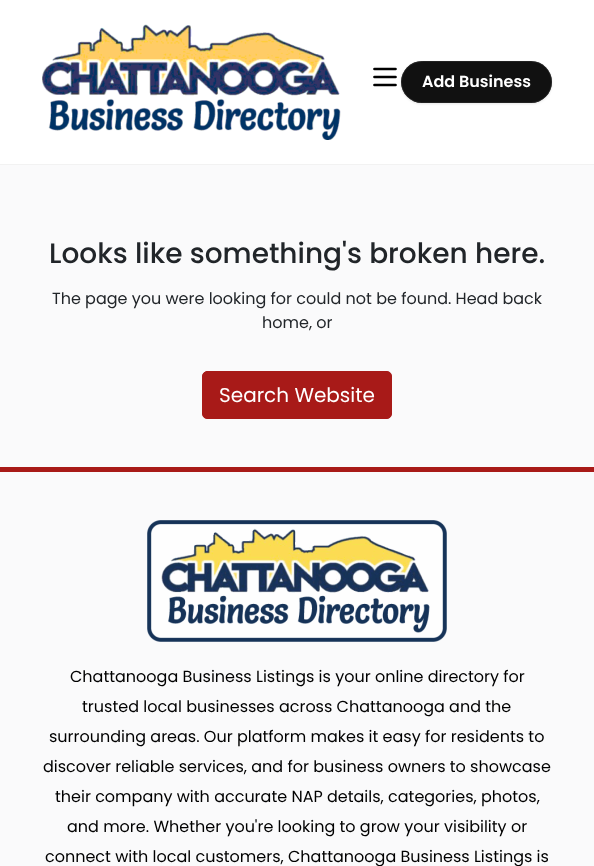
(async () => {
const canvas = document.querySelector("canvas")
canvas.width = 594
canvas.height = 866
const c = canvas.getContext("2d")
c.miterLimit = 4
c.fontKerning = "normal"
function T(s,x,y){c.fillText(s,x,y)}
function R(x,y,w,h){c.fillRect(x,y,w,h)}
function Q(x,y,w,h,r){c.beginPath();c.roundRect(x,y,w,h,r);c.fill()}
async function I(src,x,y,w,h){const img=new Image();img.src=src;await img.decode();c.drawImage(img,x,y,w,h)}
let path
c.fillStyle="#fafafb"
R(0,0,594,866)
c.fillStyle="#fff"
R(0,0,594,164)
c.fillStyle="#f2f2f2"
R(0,164,594,1)
await I("1.png",42,24,299,116)
path = new Path2D("M374.5 69h21m-21 8h21m-21 8h21")
c.strokeStyle="#000"
c.lineWidth=2.7
c.lineCap="round"
c.lineJoin="round"
c.stroke(path)
c.fillStyle="#0000001a"
c.filter="blur(1px)"
c.beginPath()
c.roundRect(401,62,151,42,21)
c.fill()
c.filter="none"
c.fillStyle="#111"
Q(401,61,151,42,21)
c.beginPath()
c.roundRect(401.5,61.5,150,41,20.5)
c.strokeStyle="#3636367d"
c.lineWidth=1
c.lineJoin="miter"
c.stroke()
c.font="600 16px Poppins"
c.fillStyle="#fff"
T("Add Business",422,87)
c.font="500 28px Poppins"
c.fillStyle="#212529"
T("Looks like something's broken here.",49,263)
c.font="16px Poppins"
T("The page you were looking for could not be found. Head back",52,304)
T("home, or",262,328)
c.fillStyle="#a81a18"
c.beginPath()
c.roundRect(202.5,371.5,189,47,4.5)
c.fill()
c.strokeStyle="#a81a18"
c.stroke()
c.font="20px Poppins"
c.fillStyle="#fff"
T("Search Website",219,402)
c.fillStyle="#a81a18"
R(0,467,594,5)
await I("2.png",147,520,300,122)
c.font="16px Poppins"
c.fillStyle="#000"
T("Chattanooga Business Listings is your online directory for",70,682)
T("trusted local businesses across Chattanooga and the",82,712)
T("surrounding areas. Our platform makes it easy for residents to",49,742)
T("discover reliable services, and for business owners to showcase",43,772)
T("their company with accurate NAP details, categories, photos,",55,802)
T("and more. Whether you're looking to grow your visibility or",67,832)
T("connect with local customers, Chattanooga Business Listings is",45,862)
})()
